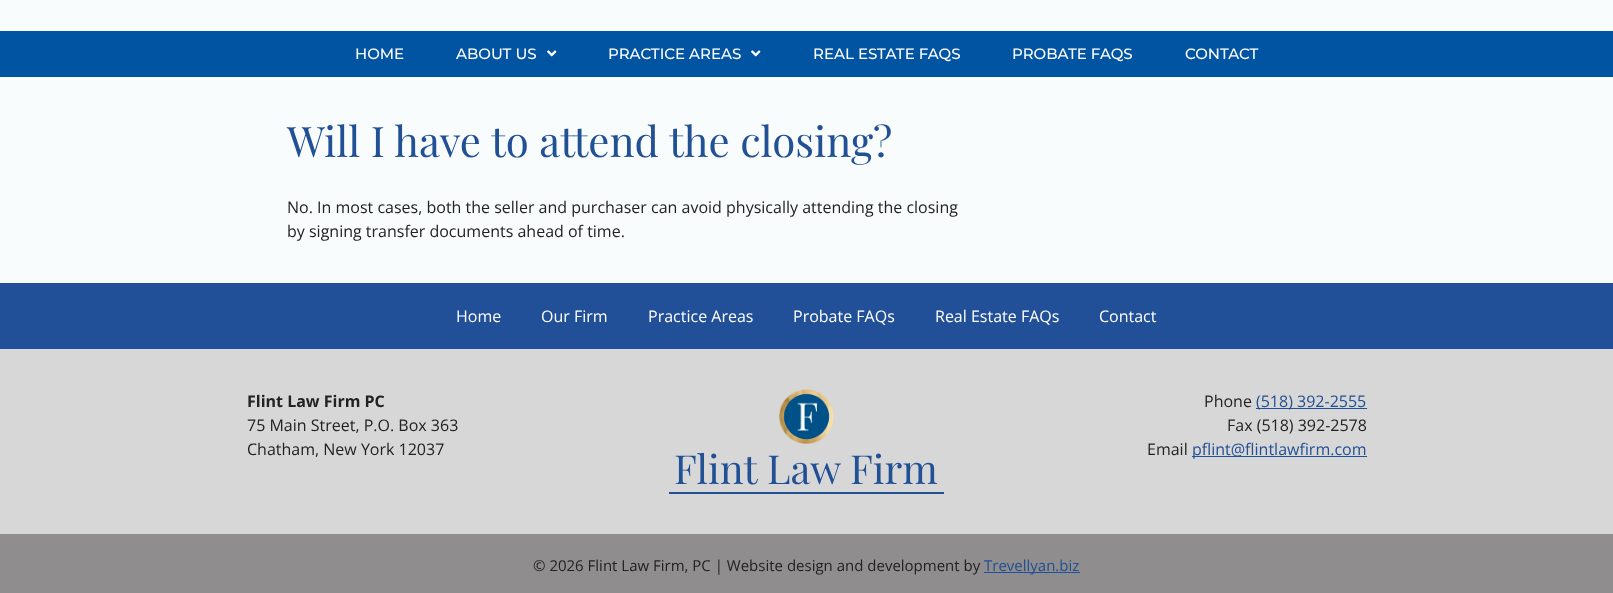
(async () => {
const canvas = document.querySelector("canvas")
canvas.width = 1613
canvas.height = 593
const c = canvas.getContext("2d")
c.miterLimit = 4
c.fontKerning = "normal"
function T(s,x,y){c.fillText(s,x,y)}
function R(x,y,w,h){c.fillRect(x,y,w,h)}
async function I(src,x,y,w,h){const img=new Image();img.src=src;await img.decode();c.drawImage(img,x,y,w,h)}
c.fillStyle="#f8fcfd"
R(0,0,1613,593)
c.fillStyle="#0154a2"
R(0,31,1613,46)
c.font="500 15px Montserrat"
c.fillStyle="#fff"
T("HOME",355,59)
T("ABOUT US",456,59)
await I("1.png",547,50,10,7)
T("PRACTICE AREAS",608,59)
await I("1.png",751,50,10,7)
T("REAL ESTATE FAQS",813,59)
T("PROBATE FAQS",1012,59)
T("CONTACT",1185,59)
c.font="42px Playfair Display"
c.fillStyle="#215095"
T("Will I have to attend the closing?",287,157)
c.font="16px Open Sans"
c.fillStyle="#222"
T("No. In most cases, both the seller and purchaser can avoid physically attending the closing",287,213)
T("by signing transfer documents ahead of time.",287,237)
c.fillStyle="#215098"
R(0,283,1613,66)
c.fillStyle="#fff"
T("Home",456,322)
T("Our Firm",541,322)
T("Practice Areas",648,322)
T("Probate FAQs",793,322)
T("Real Estate FAQs",935,322)
T("Contact",1099,322)
c.fillStyle="#d8d7d7"
R(0,349,1613,185)
c.font="bold 16px Open Sans"
c.fillStyle="#222"
T("Flint Law Firm PC",247,407)
c.font="16px Open Sans"
T("75 Main Street, P.O. Box 363",247,431)
T("Chatham, New York 12037",247,455)
T("Phone",1204,407)
c.fillStyle="#215095"
R(1256,408,111,1)
T("(518) 392-2555",1256,407)
c.fillStyle="#222"
T("Fax (518) 392-2578",1227,431)
T("Email",1147,455)
c.fillStyle="#215095"
R(1192,456,175,1)
T("pflint@flintlawfirm.com",1192,455)
await I("2.png",779,389,55,55)
c.font="40px Playfair Display"
T("Flint Law Firm",674,484)
R(669,492,275,2)
c.fillStyle="#8f8d8d"
R(0,534,1613,59)
c.font="15px Open Sans"
c.fillStyle="#222"
T("© 2026 Flint Law Firm, PC | Website design and development by",533,571)
c.fillStyle="#215095"
R(984,572,96,1)
T("Trevellyan.biz",984,571)
})()
